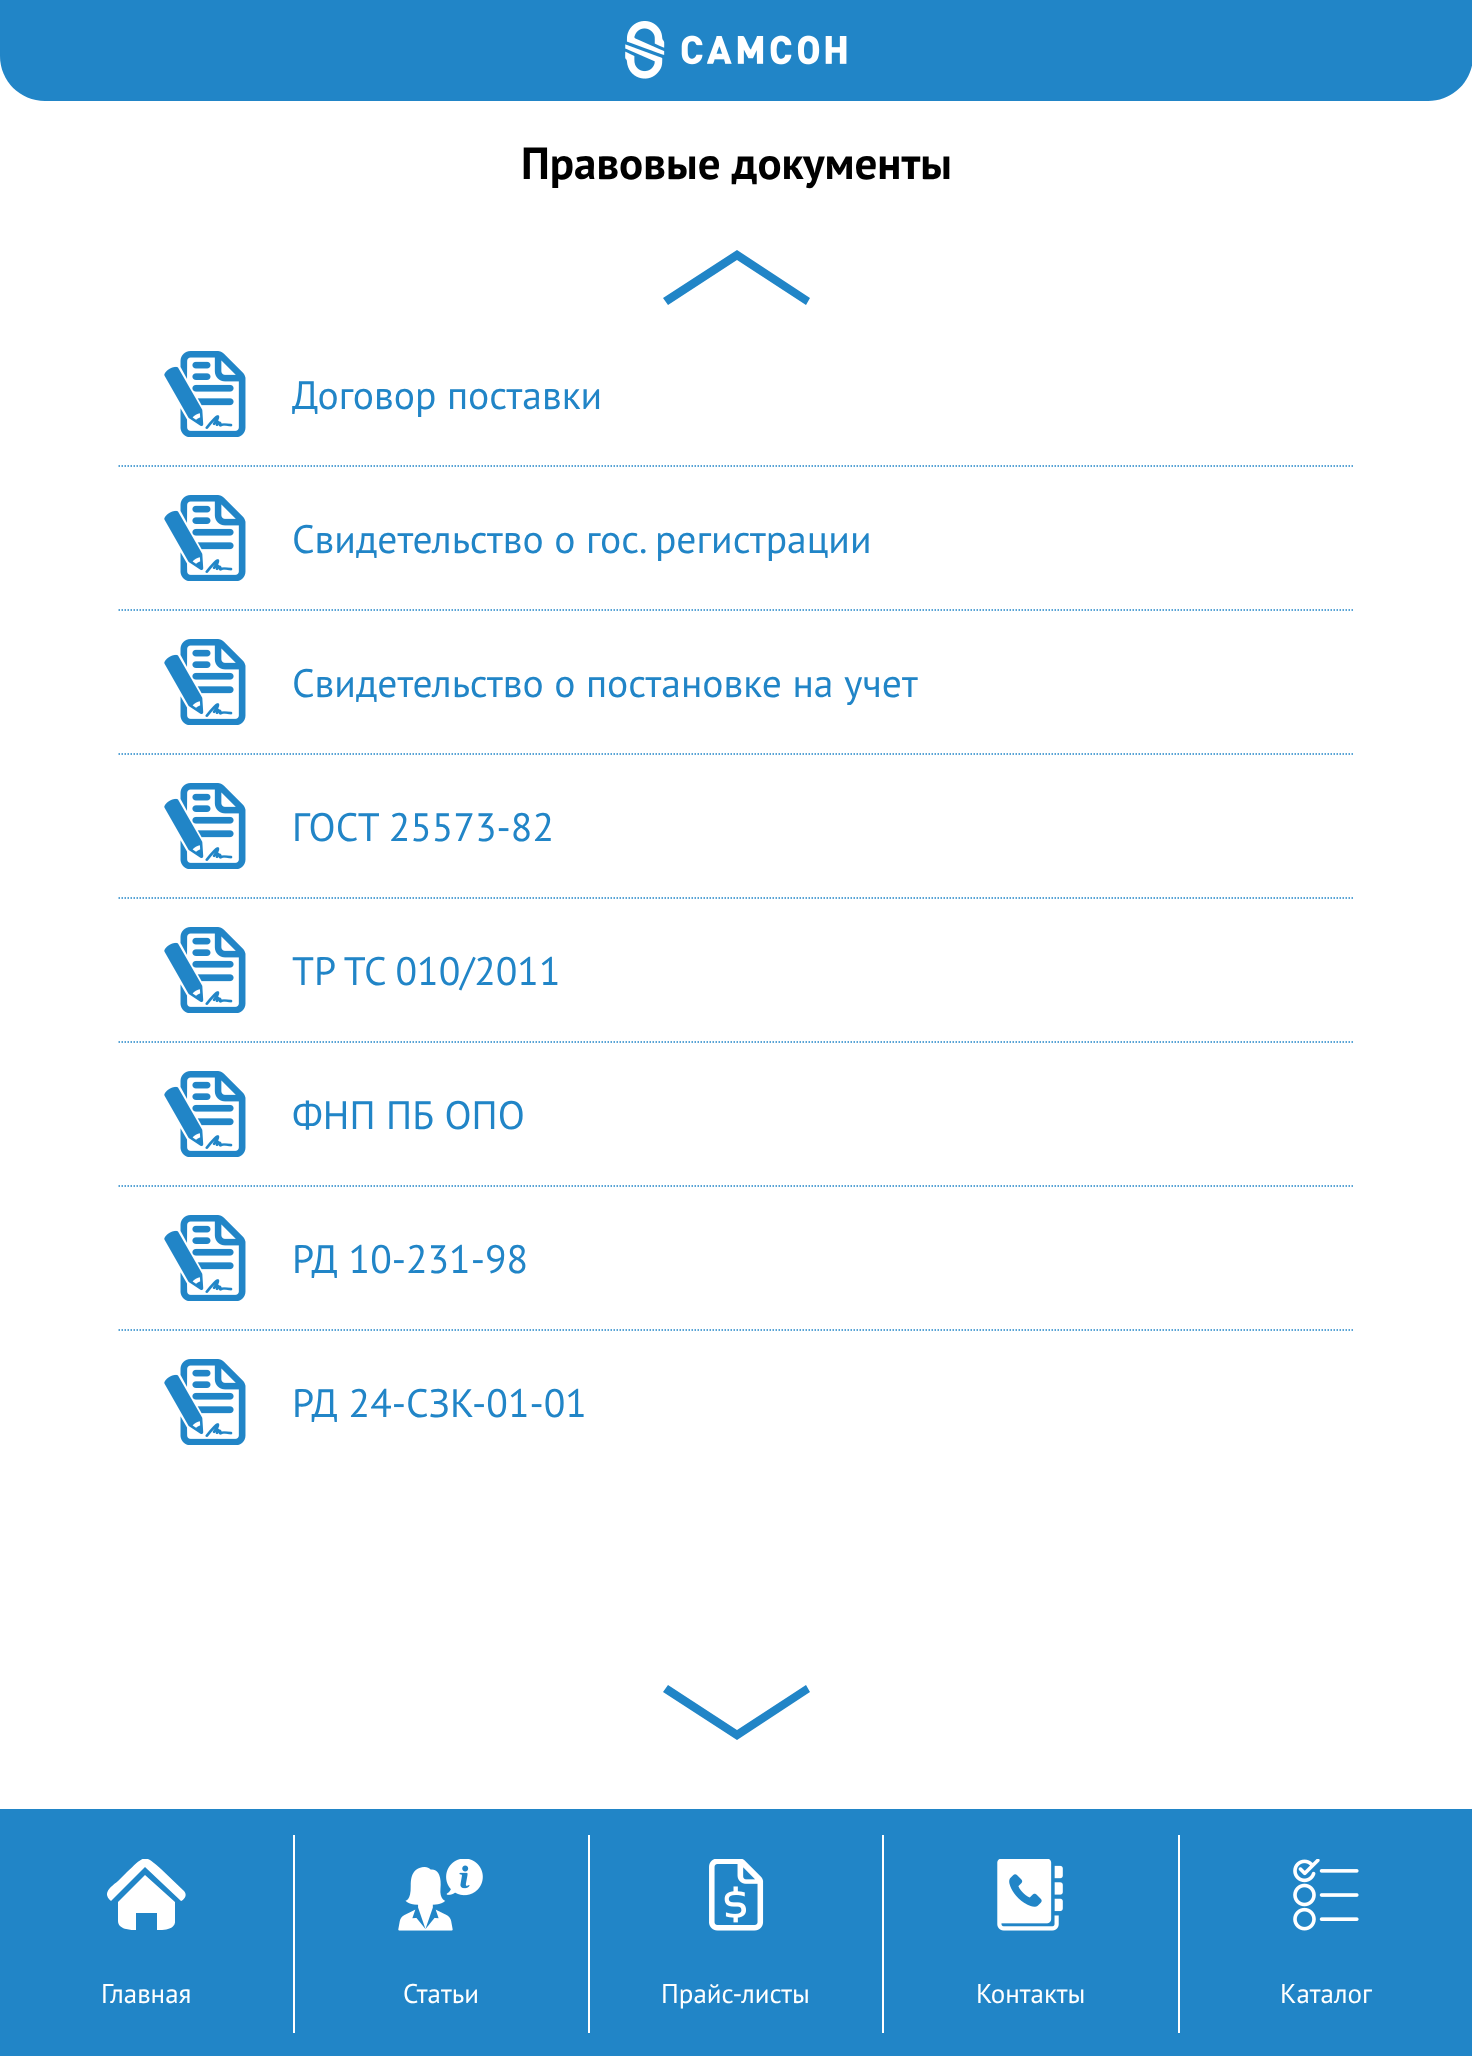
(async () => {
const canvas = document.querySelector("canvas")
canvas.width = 1472
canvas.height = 2056
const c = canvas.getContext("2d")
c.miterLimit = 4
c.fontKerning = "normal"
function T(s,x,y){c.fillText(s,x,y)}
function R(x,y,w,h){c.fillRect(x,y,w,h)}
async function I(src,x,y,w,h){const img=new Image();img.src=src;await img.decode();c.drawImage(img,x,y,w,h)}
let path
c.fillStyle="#fff"
R(0,0,1472,2056)
c.fillStyle="#2185c7"
path = new Path2D("M0 0h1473v56c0 25-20 45-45 45h-1383c-25 0-45-20-45-45z")
c.fill(path)
await I("1.png",625,21,222,58)
c.font="bold 45px PT Sans"
c.fillStyle="#000"
T("Правовые документы",521,179)
c.fillStyle="#2185c7"
path = new Path2D("M663 298l74-48l73 48l-4 7l-69-45l-69 45z")
c.fill(path,"evenodd")
path = new Path2D("M118.5 466h1236")
c.strokeStyle="#2185c7"
c.lineWidth=1.5
c.setLineDash([1.5,1.5])
c.stroke(path)
await I("2.png",164,351,82,86)
c.font="39.6px PT Sans"
T("Договор поставки",292,409)
path = new Path2D("M118.5 610h1236")
c.stroke(path)
await I("2.png",164,495,82,86)
T("Свидетельство о гос. регистрации",292,553)
path = new Path2D("M118.5 754h1236")
c.stroke(path)
await I("2.png",164,639,82,86)
T("Свидетельство о постановке на учет",292,697)
path = new Path2D("M118.5 898h1236")
c.stroke(path)
await I("2.png",164,783,82,86)
T("ГОСТ 25573-82",292,841)
path = new Path2D("M118.5 1042h1236")
c.stroke(path)
await I("2.png",164,927,82,86)
T("ТР ТС 010/2011",292,985)
path = new Path2D("M118.5 1186h1236")
c.stroke(path)
await I("2.png",164,1071,82,86)
T("ФНП ПБ ОПО",292,1129)
path = new Path2D("M118.5 1330h1236")
c.stroke(path)
await I("2.png",164,1215,82,86)
T("РД 10-231-98",292,1273)
await I("2.png",164,1359,82,86)
T("РД 24-СЗК-01-01",292,1417)
path = new Path2D("M663 1692l74 48l73-48l-4-7l-69 45l-69-45z")
c.fill(path,"evenodd")
R(0,1809,1472,247)
c.fillStyle="#fff"
R(293,1835,2,198)
c.save()
c.beginPath()
c.rect(0,1859,293,72)
c.clip()
path = new Path2D("M175 1902l-30-27l-27 27v19c0 10 18 9 18 9v-17h21v17c20 1 18-9 18-9zm9-11l-23-22c-17-15-16-14-34 3l-9 9c-6 5-17 12-7 20l34-34l36 34c0 0 8-4 3-10z")
c.fill(path,"evenodd")
c.restore()
c.font="27px PT Sans"
T("Главная",101,2003)
R(588,1835,2,198)
await I("3.png",398,1859,85,72)
T("Статьи",403,2003)
R(882,1835,2,198)
await I("4.png",709,1859,55,72)
T("Прайс-листы",661,2003)
R(1178,1835,2,198)
await I("5.png",997,1859,66,72)
T("Контакты",976,2003)
await I("6.png",1293,1859,66,72)
T("Каталог",1280,2003)
})()
